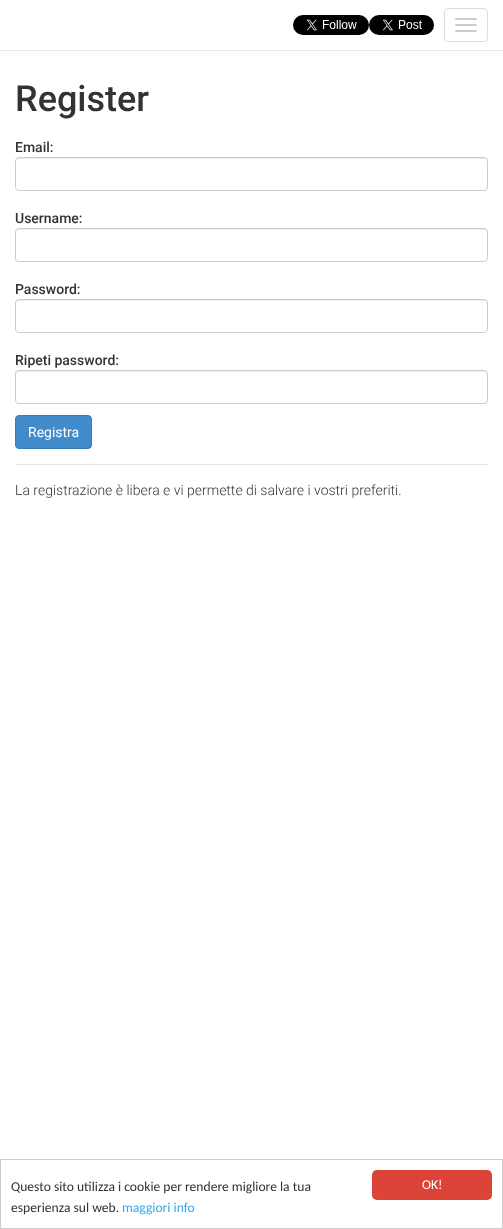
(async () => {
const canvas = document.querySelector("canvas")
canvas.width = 503
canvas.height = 1229
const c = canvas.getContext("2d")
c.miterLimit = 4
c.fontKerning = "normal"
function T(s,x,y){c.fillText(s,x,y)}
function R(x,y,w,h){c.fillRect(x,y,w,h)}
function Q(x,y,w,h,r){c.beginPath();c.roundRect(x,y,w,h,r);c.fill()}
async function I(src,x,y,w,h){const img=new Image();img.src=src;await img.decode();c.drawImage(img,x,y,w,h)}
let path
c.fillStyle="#fff"
R(0,0,503,1229)
c.fillStyle="#e7e7e7"
R(0,50,503,1)
await I("1.png",293,15,76,20)
await I("2.png",369,15,65,20)
c.beginPath()
c.roundRect(444.5,8.5,43,33,3.5)
c.strokeStyle="#ddd"
c.stroke()
c.fillStyle="#ccc"
Q(455,18,22,2,1)
Q(455,24,22,2,1)
Q(455,30,22,2,1)
c.font="500 36px Roboto"
c.fillStyle="#333"
T("Register",15,111)
c.fillStyle="#e7e7e7"
R(15,464,473,1)
c.font="500 14px Roboto"
c.fillStyle="#333"
T("Email:",15,152)
c.fillStyle="#ececec"
path = new Path2D("M19 159h465c2 0 3 1 3 3v-1c0-2-1-3-3-3h-465c-2 0-3 1-3 3v1c0-2 1-3 3-3z")
c.fill(path)
c.beginPath()
c.roundRect(15.5,157.5,472,33,3.5)
c.strokeStyle="#ccc"
c.stroke()
c.fillStyle="#333"
T("Username:",15,223)
c.fillStyle="#ececec"
path = new Path2D("M19 230h465c2 0 3 1 3 3v-1c0-2-1-3-3-3h-465c-2 0-3 1-3 3v1c0-2 1-3 3-3z")
c.fill(path)
c.beginPath()
c.roundRect(15.5,228.5,472,33,3.5)
c.stroke()
c.fillStyle="#333"
T("Password:",15,294)
c.fillStyle="#ececec"
path = new Path2D("M19 301h465c2 0 3 1 3 3v-1c0-2-1-3-3-3h-465c-2 0-3 1-3 3v1c0-2 1-3 3-3z")
c.fill(path)
c.beginPath()
c.roundRect(15.5,299.5,472,33,3.5)
c.stroke()
c.fillStyle="#333"
T("Ripeti password:",15,365)
c.fillStyle="#ececec"
path = new Path2D("M19 372h465c2 0 3 1 3 3v-1c0-2-1-3-3-3h-465c-2 0-3 1-3 3v1c0-2 1-3 3-3z")
c.fill(path)
c.beginPath()
c.roundRect(15.5,370.5,472,33,3.5)
c.stroke()
c.fillStyle="#428bca"
c.beginPath()
c.roundRect(15.5,415.5,76,33,3.5)
c.fill()
c.strokeStyle="#357ebd"
c.stroke()
c.font="14px Roboto"
c.fillStyle="#fff"
T("Registra",28,437)
c.font="300 14px Roboto"
c.fillStyle="#333"
T("La registrazione è libera e vi permette di salvare i vostri preferiti.",15,495)
c.strokeStyle="#ccc"
c.strokeRect(.5,1159.5,502,69)
c.font="13.6px Carlito"
T("Questo sito utilizza i cookie per rendere migliore la tua",11,1191)
T("esperienza sul web.",11,1212)
c.fillStyle="#31a8f0"
T("maggiori info",122,1212)
c.fillStyle="#db4437"
Q(372,1170,120,30,5)
c.fillStyle="#fff"
T("OK!",422,1189)
})()
